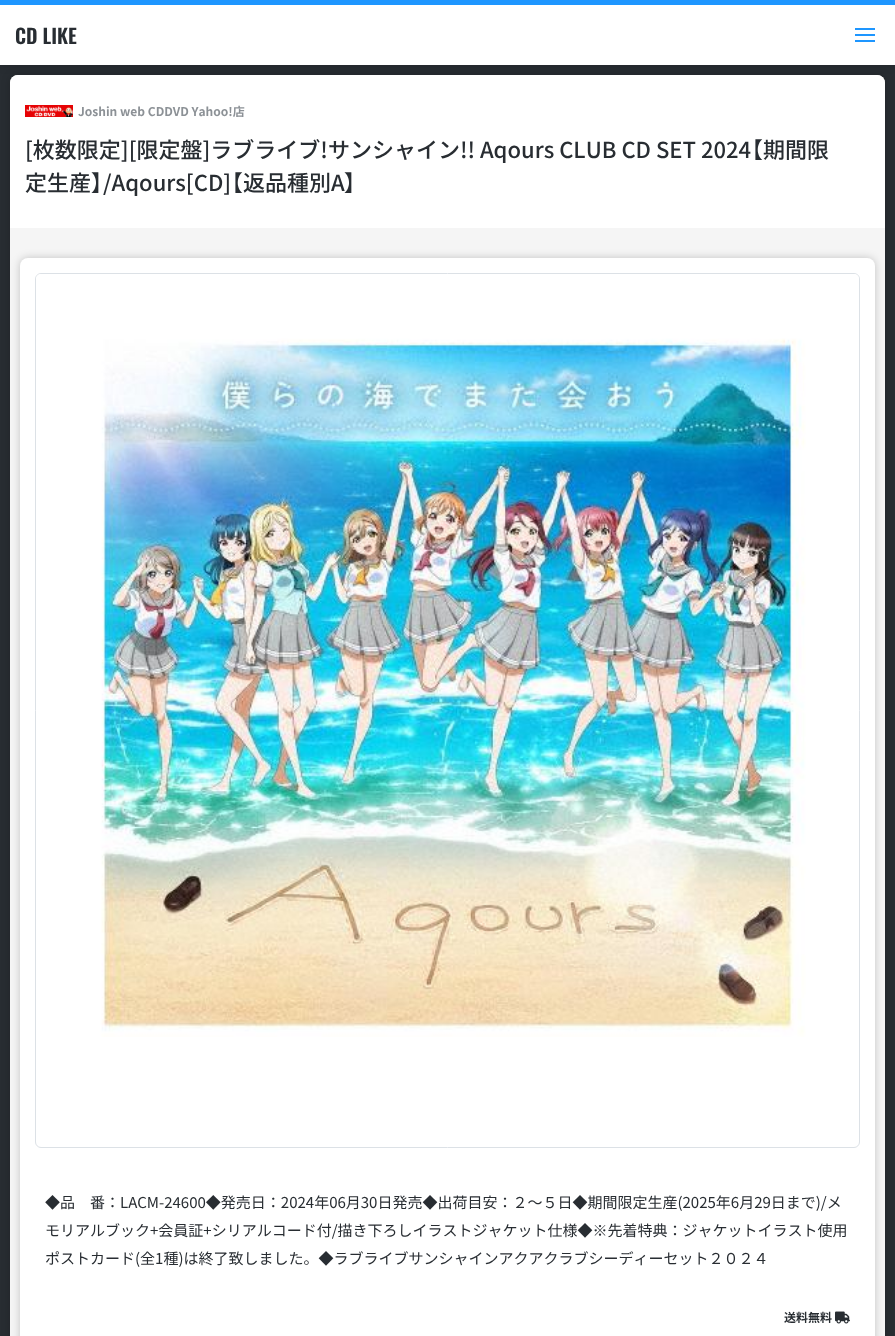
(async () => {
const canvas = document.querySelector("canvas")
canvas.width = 895
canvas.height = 1336
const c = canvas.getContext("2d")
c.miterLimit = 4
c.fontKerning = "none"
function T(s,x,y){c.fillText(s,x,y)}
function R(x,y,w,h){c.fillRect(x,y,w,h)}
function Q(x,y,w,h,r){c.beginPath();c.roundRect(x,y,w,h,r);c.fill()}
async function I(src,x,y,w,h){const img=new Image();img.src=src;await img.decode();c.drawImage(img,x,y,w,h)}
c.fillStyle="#282d32"
R(0,0,895,1336)
c.fillStyle="#00000033"
c.filter="blur(4px)"
c.beginPath()
c.roundRect(10,75,875,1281,8)
c.fill()
c.filter="none"
c.fillStyle="#f5f5f5"
Q(10,75,875,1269,8)
c.fillStyle="#fff"
c.beginPath()
c.roundRect(10,75,875,153,[8,8,0,0])
c.fill()
c.fillStyle="#00000033"
c.filter="blur(4px)"
c.beginPath()
c.rect(0,0,895,65)
c.fill()
c.filter="none"
c.fillStyle="#fff"
R(0,5,895,60)
c.fillStyle="#1e96ff"
R(0,0,895,5)
c.font="600 20px Oswald"
c.fillStyle="#282d32"
T("CD LIKE",15,44)
c.fillStyle="#1e96ff"
R(855,34,20,2)
R(855,28,20,2)
R(855,40,20,2)
await I("1.png",25,105,48,12)
c.font="bold 12px Noto Sans JP"
c.fillStyle="#8c9196"
T("Joshin web CDDVD Yahoo!店",78,116)
c.font="500 22px Noto Sans JP"
c.fillStyle="#282d32"
T("[枚数限定][限定盤]ラブライブ!サンシャイン!! Aqours CLUB CD SET 2024",25,158)
c.font="500 22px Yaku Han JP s"
T("【",751,158)
c.font="500 22px Noto Sans JP"
T("期間限",763,158)
T("定生産",25,191)
c.font="500 22px Yaku Han JP s"
T("】",91,191)
c.font="500 22px Noto Sans JP"
T("/Aqours[CD]",103,191)
c.font="500 22px Yaku Han JP s"
T("【",231,191)
c.font="500 22px Noto Sans JP"
T("返品種別A",243,191)
c.font="500 22px Yaku Han JP s"
T("】",344,191)
c.fillStyle="#00000033"
c.filter="blur(4px)"
c.beginPath()
c.roundRect(20,258,855,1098,8)
c.fill()
c.filter="none"
c.fillStyle="#fff"
Q(20,258,855,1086,8)
c.beginPath()
c.roundRect(35.5,273.5,824,874,5.5)
c.strokeStyle="#dce1e6"
c.stroke()
await I("2.png",36,274,823,763)
c.font="15px Noto Sans JP"
c.fillStyle="#282d32"
T("◆品　番：LACM-24600◆発売日：2024年06月30日発売◆出荷目安：２〜５日◆期間限定生産(2025年6月29日まで)/メ",45,1208)
T("モリアルブック+会員証+シリアルコード付/描き下ろしイラストジャケット仕様◆※先着特典：ジャケットイラスト使用",45,1236)
T("ポストカード(全1種)は終了致しました。◆ラブライブサンシャインアクアクラブシーディーセット２０２４",45,1264)
c.font="bold 12px Noto Sans JP"
T("送料無料",784,1322)
await I("3.png",835,1311,15,13)
})()
